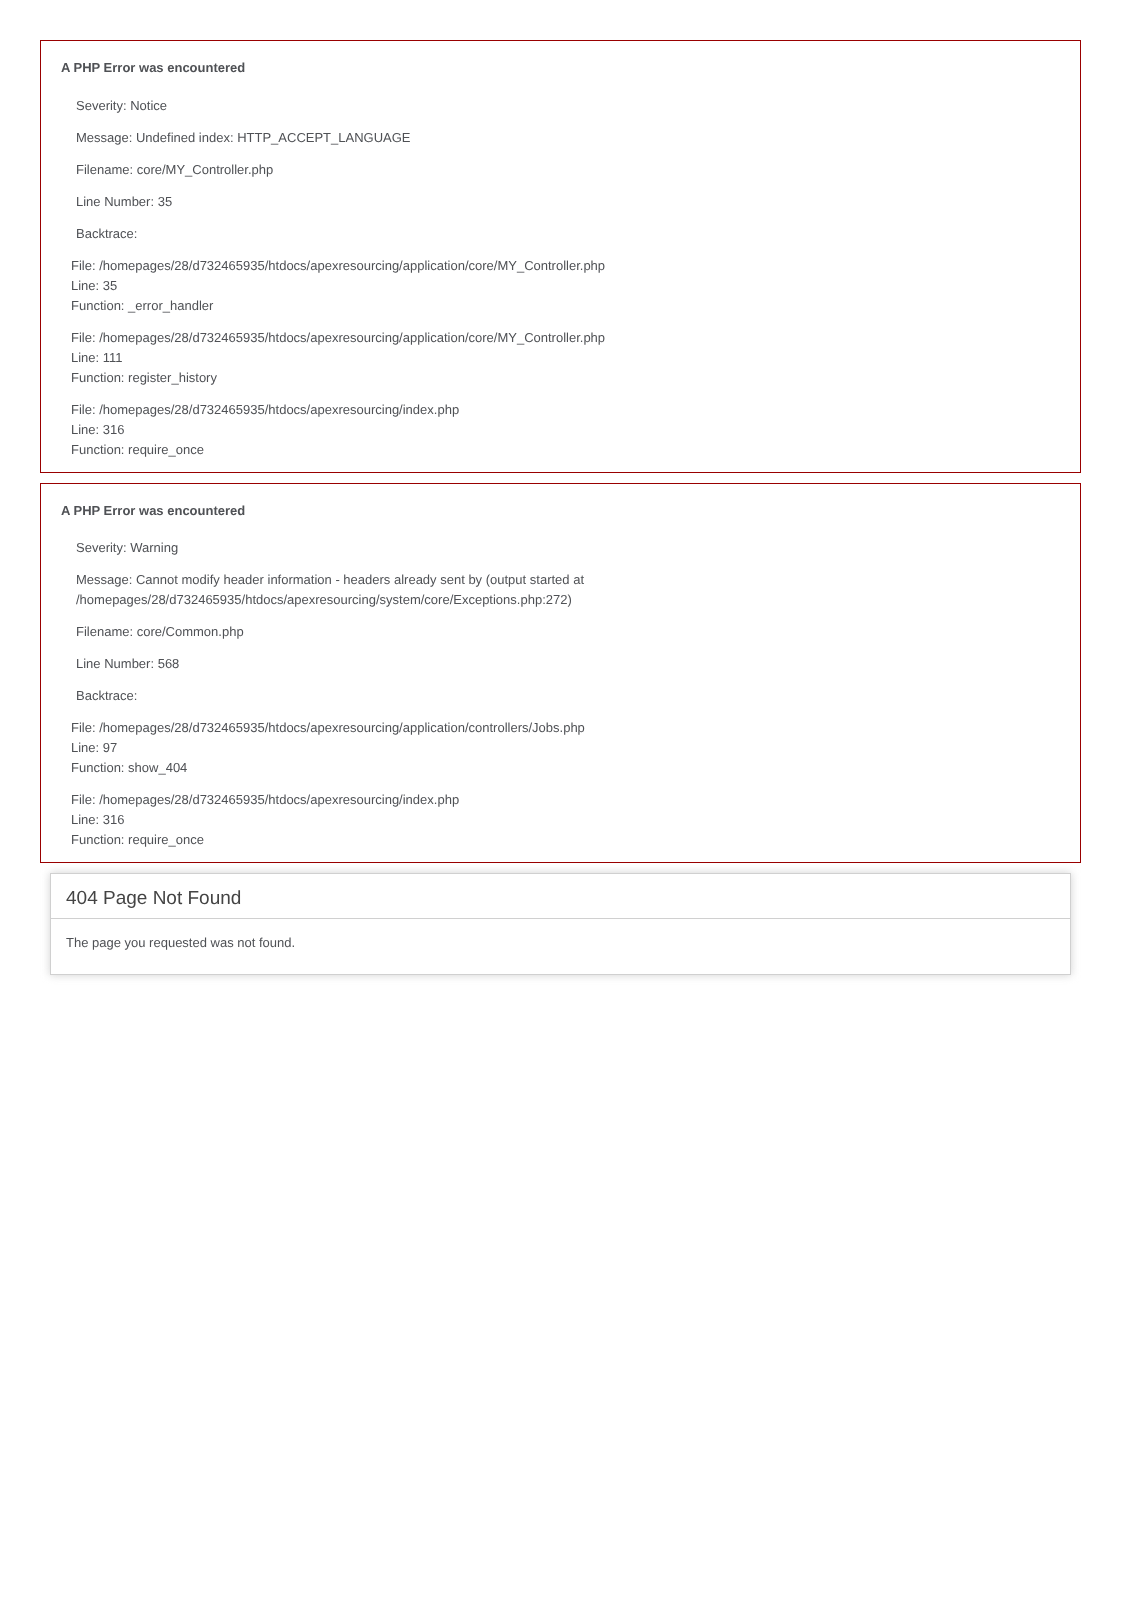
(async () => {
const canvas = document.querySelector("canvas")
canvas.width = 1121
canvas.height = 1618
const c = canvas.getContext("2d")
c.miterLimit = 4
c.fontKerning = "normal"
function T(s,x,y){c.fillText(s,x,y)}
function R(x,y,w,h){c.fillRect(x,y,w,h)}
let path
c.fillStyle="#fff"
R(0,0,1121,1618)
c.strokeStyle="#900"
c.strokeRect(40.5,40.5,1040,432)
c.font="bold 13px Liberation Sans"
c.fillStyle="#4f5155"
T("A PHP Error was encountered",61,72)
c.font="13px Liberation Sans"
T("Severity: Notice",76,110)
T("Message: Undefined index: HTTP_ACCEPT_LANGUAGE",76,142)
T("Filename: core/MY_Controller.php",76,174)
T("Line Number: 35",76,206)
T("Backtrace:",76,238)
T("File: /homepages/28/d732465935/htdocs/apexresourcing/application/core/MY_Controller.php",71,270)
T("Line: 35",71,290)
T("Function: _error_handler",71,310)
T("File: /homepages/28/d732465935/htdocs/apexresourcing/application/core/MY_Controller.php",71,342)
T("Line: 111",71,362)
T("Function: register_history",71,382)
T("File: /homepages/28/d732465935/htdocs/apexresourcing/index.php",71,414)
T("Line: 316",71,434)
T("Function: require_once",71,454)
c.strokeRect(40.5,483.5,1040,379)
c.font="bold 13px Liberation Sans"
T("A PHP Error was encountered",61,515)
c.font="13px Liberation Sans"
T("Severity: Warning",76,552)
T("Message: Cannot modify header information - headers already sent by (output started at",76,584)
T("/homepages/28/d732465935/htdocs/apexresourcing/system/core/Exceptions.php:272)",76,604)
T("Filename: core/Common.php",76,636)
T("Line Number: 568",76,668)
T("Backtrace:",76,700)
T("File: /homepages/28/d732465935/htdocs/apexresourcing/application/controllers/Jobs.php",71,732)
T("Line: 97",71,752)
T("Function: show_404",71,772)
T("File: /homepages/28/d732465935/htdocs/apexresourcing/index.php",71,804)
T("Line: 316",71,824)
T("Function: require_once",71,844)
c.save()
path = new Path2D("M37 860h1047v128h-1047zm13 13h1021v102h-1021z")
c.clip(path,"evenodd")
c.fillStyle="#d0d0d0"
c.filter="blur(4px)"
c.beginPath()
c.rect(50,873,1021,102)
c.fill()
c.filter="none"
c.restore()
c.strokeStyle="#d0d0d0"
c.strokeRect(50.5,873.5,1020,101)
c.fillStyle="#d0d0d0"
R(51,918,1019,1)
c.font="19px Liberation Sans"
c.fillStyle="#444"
T("404 Page Not Found",66,904)
c.font="13px Liberation Sans"
c.fillStyle="#4f5155"
T("The page you requested was not found.",66,947)
})()
